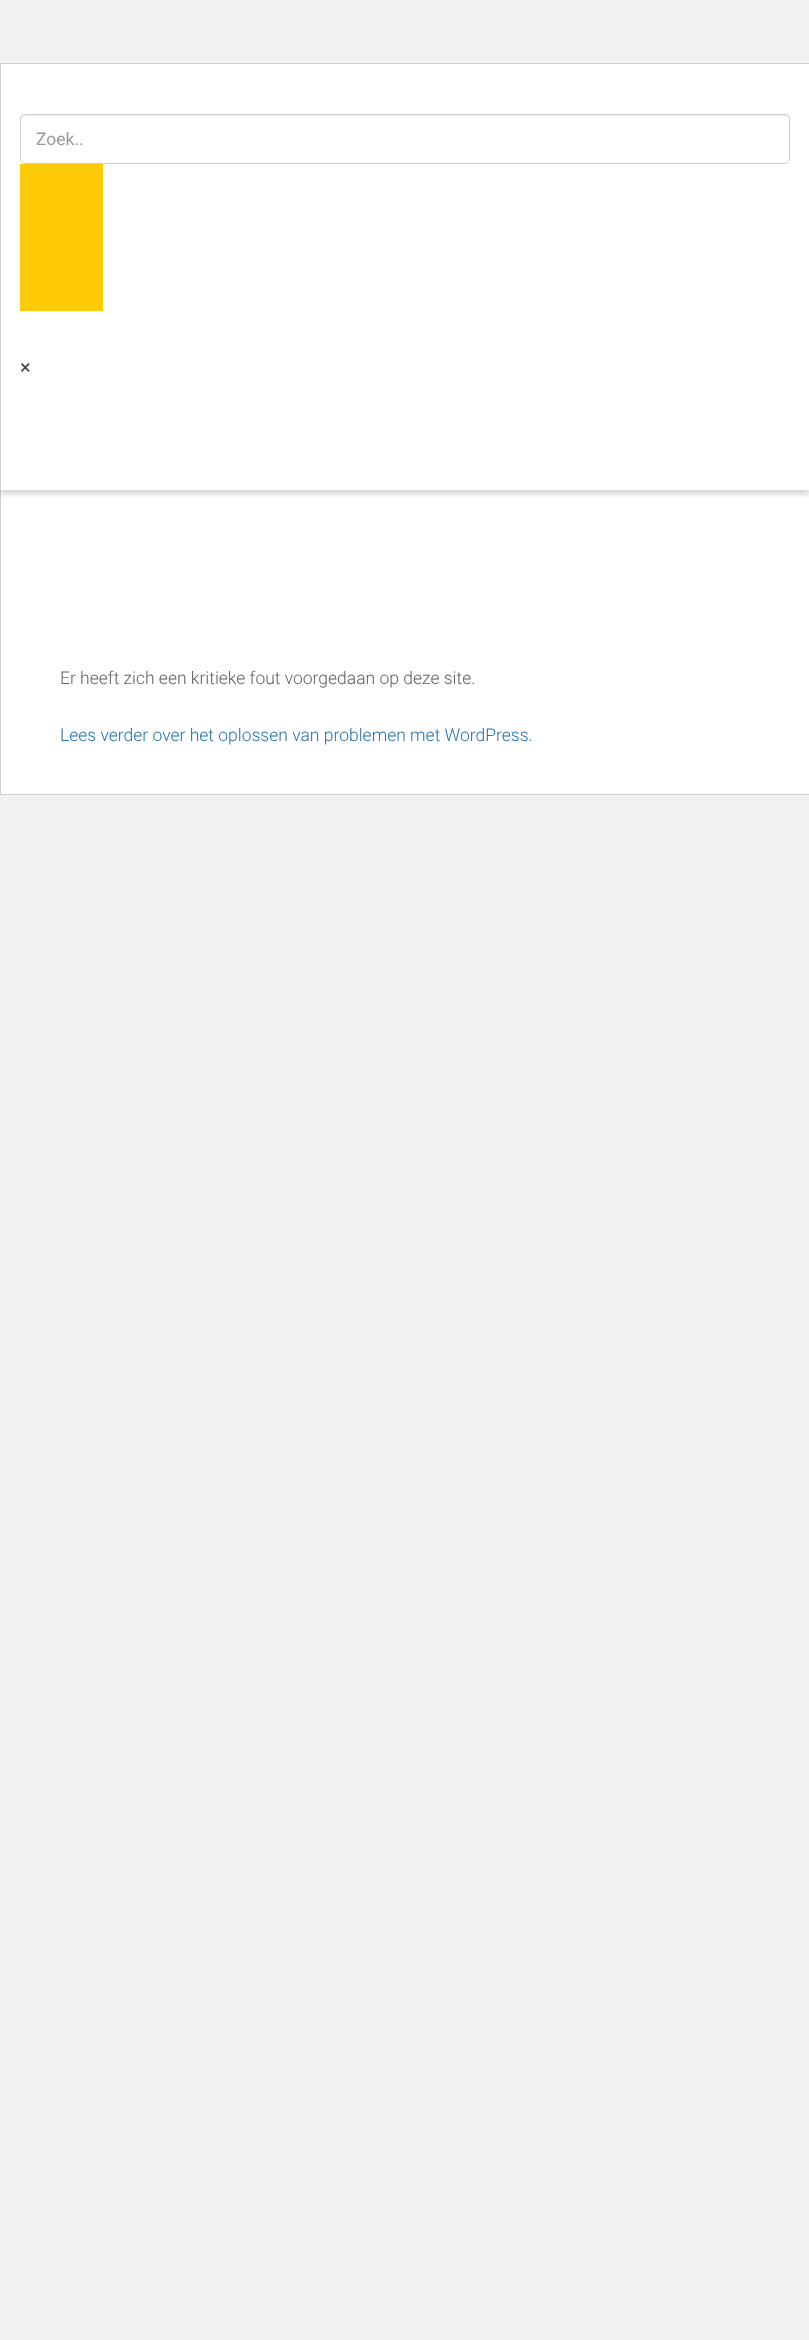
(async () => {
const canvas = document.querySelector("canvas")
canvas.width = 809
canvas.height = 2340
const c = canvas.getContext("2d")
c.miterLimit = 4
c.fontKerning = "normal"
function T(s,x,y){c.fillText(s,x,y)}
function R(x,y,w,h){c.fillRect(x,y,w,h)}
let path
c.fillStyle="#f1f1f1"
R(0,0,809,2340)
c.fillStyle="#fff"
c.beginPath()
c.rect(.5,63.5,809,731)
c.fill()
c.strokeStyle="#ccd0d4"
c.stroke()
c.save()
c.beginPath()
c.rect(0,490,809,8)
c.clip()
c.fillStyle="#0000002e"
c.filter="blur(3px)"
c.beginPath()
c.rect(0,4,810,490)
c.fill()
c.filter="none"
c.restore()
c.fillStyle="#ececec"
path = new Path2D("M25 116h760c2 0 4 2 4 4v-1c0-2-2-4-4-4h-760c-2 0-4 2-4 4v1c0-2 2-4 4-4z")
c.fill(path)
c.beginPath()
c.roundRect(20.5,114.5,769,49,4.5)
c.strokeStyle="#ccc"
c.stroke()
c.font="17.5px Roboto"
c.fillStyle="#999"
T("Zoek..",36,145)
c.fillStyle="#feca05"
R(20,164,83,147)
c.font="20px Roboto"
c.fillStyle="#444"
T("×",20,374)
c.font="300 17.5px Roboto"
c.fillStyle="#606060"
T("Er heeft zich een kritieke fout voorgedaan op deze site.",60,684)
c.fillStyle="#2271b1"
T("Lees verder over het oplossen van problemen met WordPress.",60,741)
})()
